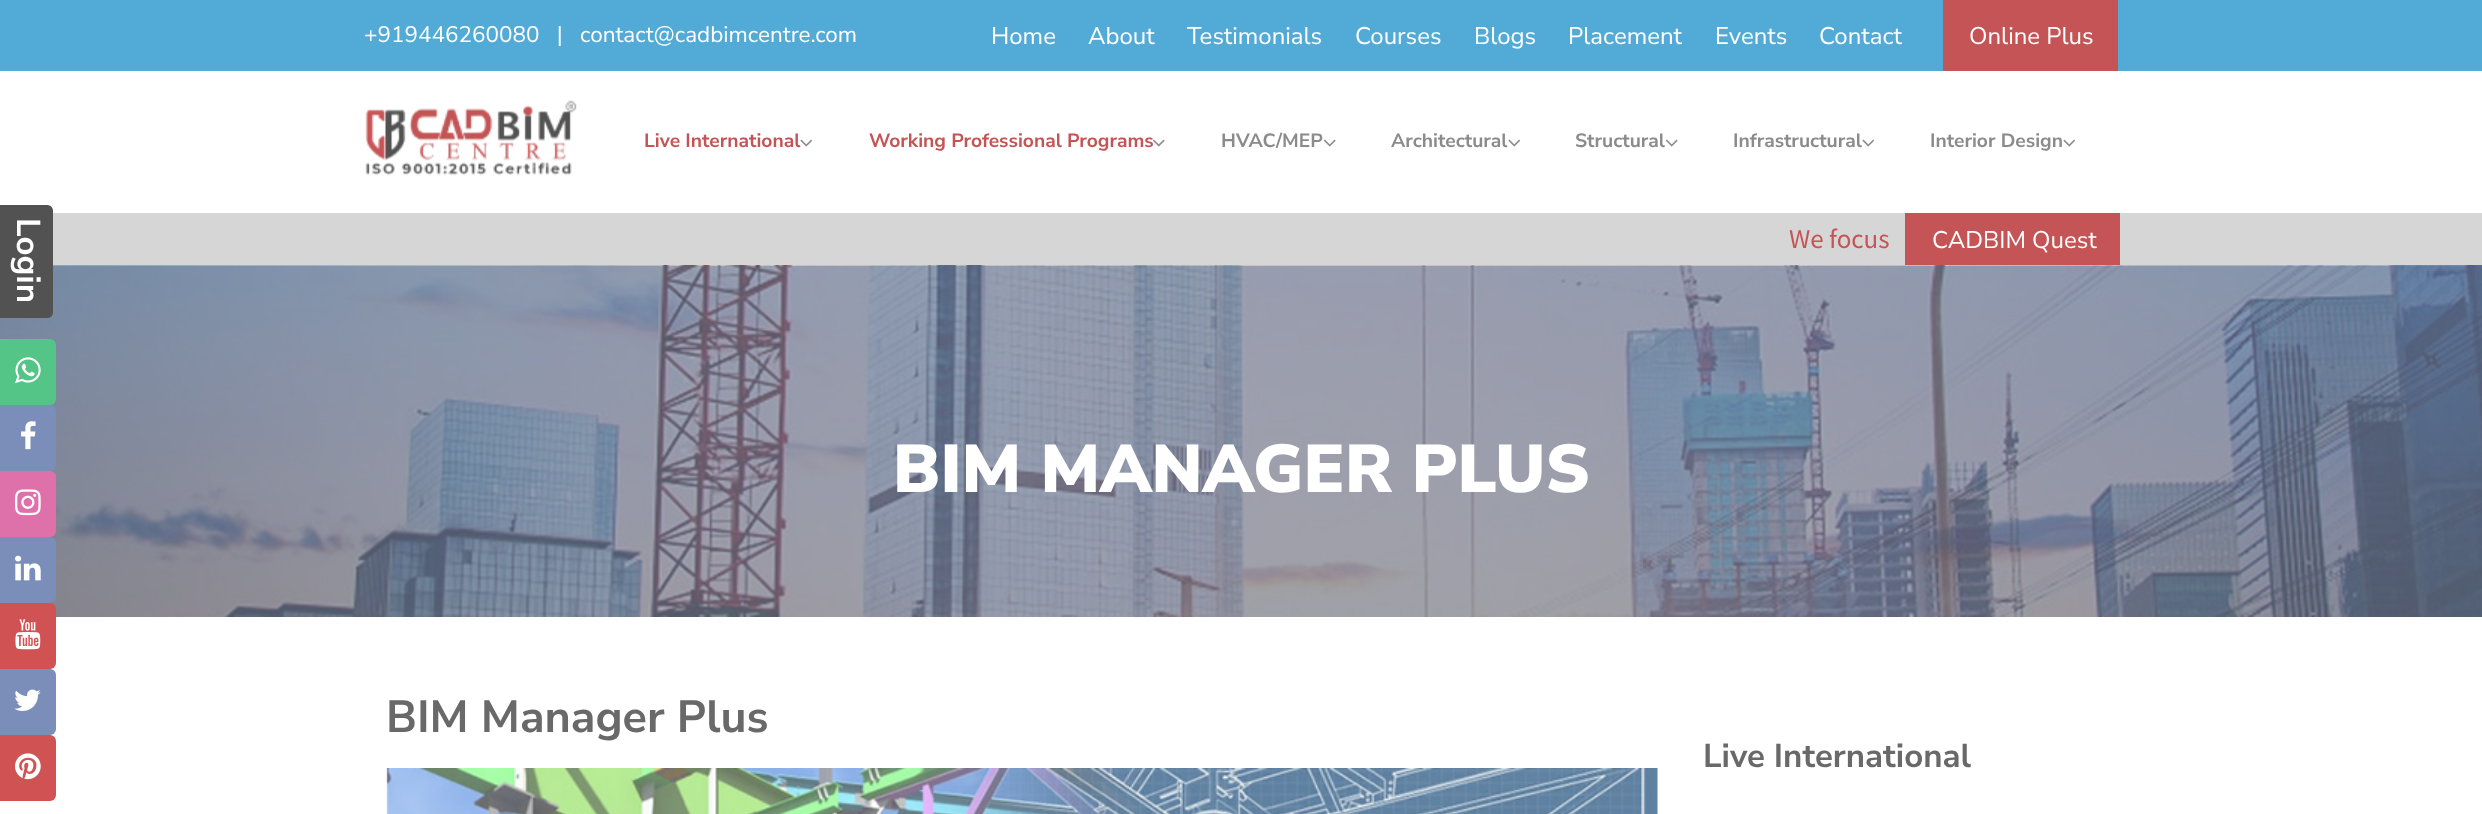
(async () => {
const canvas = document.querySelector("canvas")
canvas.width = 2482
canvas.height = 814
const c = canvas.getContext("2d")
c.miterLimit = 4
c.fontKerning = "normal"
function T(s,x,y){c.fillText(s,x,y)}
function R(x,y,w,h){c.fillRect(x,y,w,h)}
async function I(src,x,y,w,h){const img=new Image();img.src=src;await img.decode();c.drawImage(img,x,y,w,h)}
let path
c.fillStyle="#fff"
R(0,0,2482,814)
await I("12.png",0,265,2482,352)
c.fillStyle="#525252"
path = new Path2D("M53 211v101c0 4-3 6-6 6h-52v-113h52c3 0 6 2 6 6z")
c.fill(path)
c.font="bold 33px Nunito Sans"
c.fillStyle="#fff"
c.save()
c.translate(17,218)
c.rotate(90 * Math.PI / 180)
c.fillText("Login",0,0)
c.restore()
c.fillStyle="#52abd6"
R(0,0,2482,71)
c.font="22.5px Nunito Sans"
c.fillStyle="#fff"
T("+919446260080   |",364,42)
T("contact@cadbimcentre.com",580,42)
c.font="24px Nunito Sans"
T("Home",991,44)
T("About",1088,44)
T("Testimonials",1187,44)
T("Courses",1355,44)
T("Blogs",1474,44)
T("Placement",1568,44)
T("Events",1715,44)
T("Contact",1819,44)
c.fillStyle="#c45455"
R(1943,0,175,71)
c.fillStyle="#fff"
T("Online Plus",1969,44)
await I("1.png",365,100,212,76)
c.font="bold 19.25px Nunito Sans"
c.fillStyle="#c45455"
T("Live International",644,147)
await I("2.png",800,139,12,8)
T("Working Professional Programs",869,147)
await I("3.png",1153,139,12,8)
c.fillStyle="#8b8b8b"
T("HVAC/MEP",1221,147)
await I("3.png",1324,139,12,8)
T("Architectural",1391,147)
await I("4.png",1508,139,12,8)
T("Structural",1575,147)
await I("3.png",1666,139,12,8)
T("Infrastructural",1733,147)
await I("4.png",1862,139,12,8)
T("Interior Design",1930,147)
await I("4.png",2063,139,12,8)
c.fillStyle="#d6d6d6"
R(53,213,2429,52)
c.font="27px Source Sans Pro"
c.fillStyle="#c45455"
T("We focus",1789,248)
R(1905,213,215,52)
c.font="24px Nunito Sans"
c.fillStyle="#fff"
T("CADBIM Quest",1932,248)
c.fillStyle="#54c487"
c.beginPath()
c.roundRect(0,339,56,66,[0,6,6,0])
c.fill()
await I("5.png",15,357,26,27)
c.fillStyle="#7a8eb9"
c.beginPath()
c.roundRect(0,405,56,66,[0,6,6,0])
c.fill()
await I("6.png",21,421,15,29)
c.fillStyle="#de70aa"
c.beginPath()
c.roundRect(0,471,56,66,[0,6,6,0])
c.fill()
await I("7.png",15,489,26,27)
c.fillStyle="#7a8eb9"
c.beginPath()
c.roundRect(0,537,56,66,[0,6,6,0])
c.fill()
await I("8.png",15,555,26,26)
c.fillStyle="#d15252"
c.beginPath()
c.roundRect(0,603,56,66,[0,6,6,0])
c.fill()
await I("9.png",15,619,26,31)
c.fillStyle="#7a8eb9"
c.beginPath()
c.roundRect(0,669,56,66,[0,6,6,0])
c.fill()
await I("10.png",14,689,27,22)
c.fillStyle="#d15252"
c.beginPath()
c.roundRect(0,735,56,66,[0,6,6,0])
c.fill()
await I("11.png",15,753,26,27)
c.font="900 67.5px Nunito Sans"
c.fillStyle="#fff"
T("BIM MANAGER PLUS",893,492)
c.font="bold 45px Nunito Sans"
c.fillStyle="#696969"
T("BIM Manager Plus",386,732)
await I("13.png",386,768,1272,46)
c.font="bold 33px Nunito Sans"
T("Live International",1703,767)
})()
